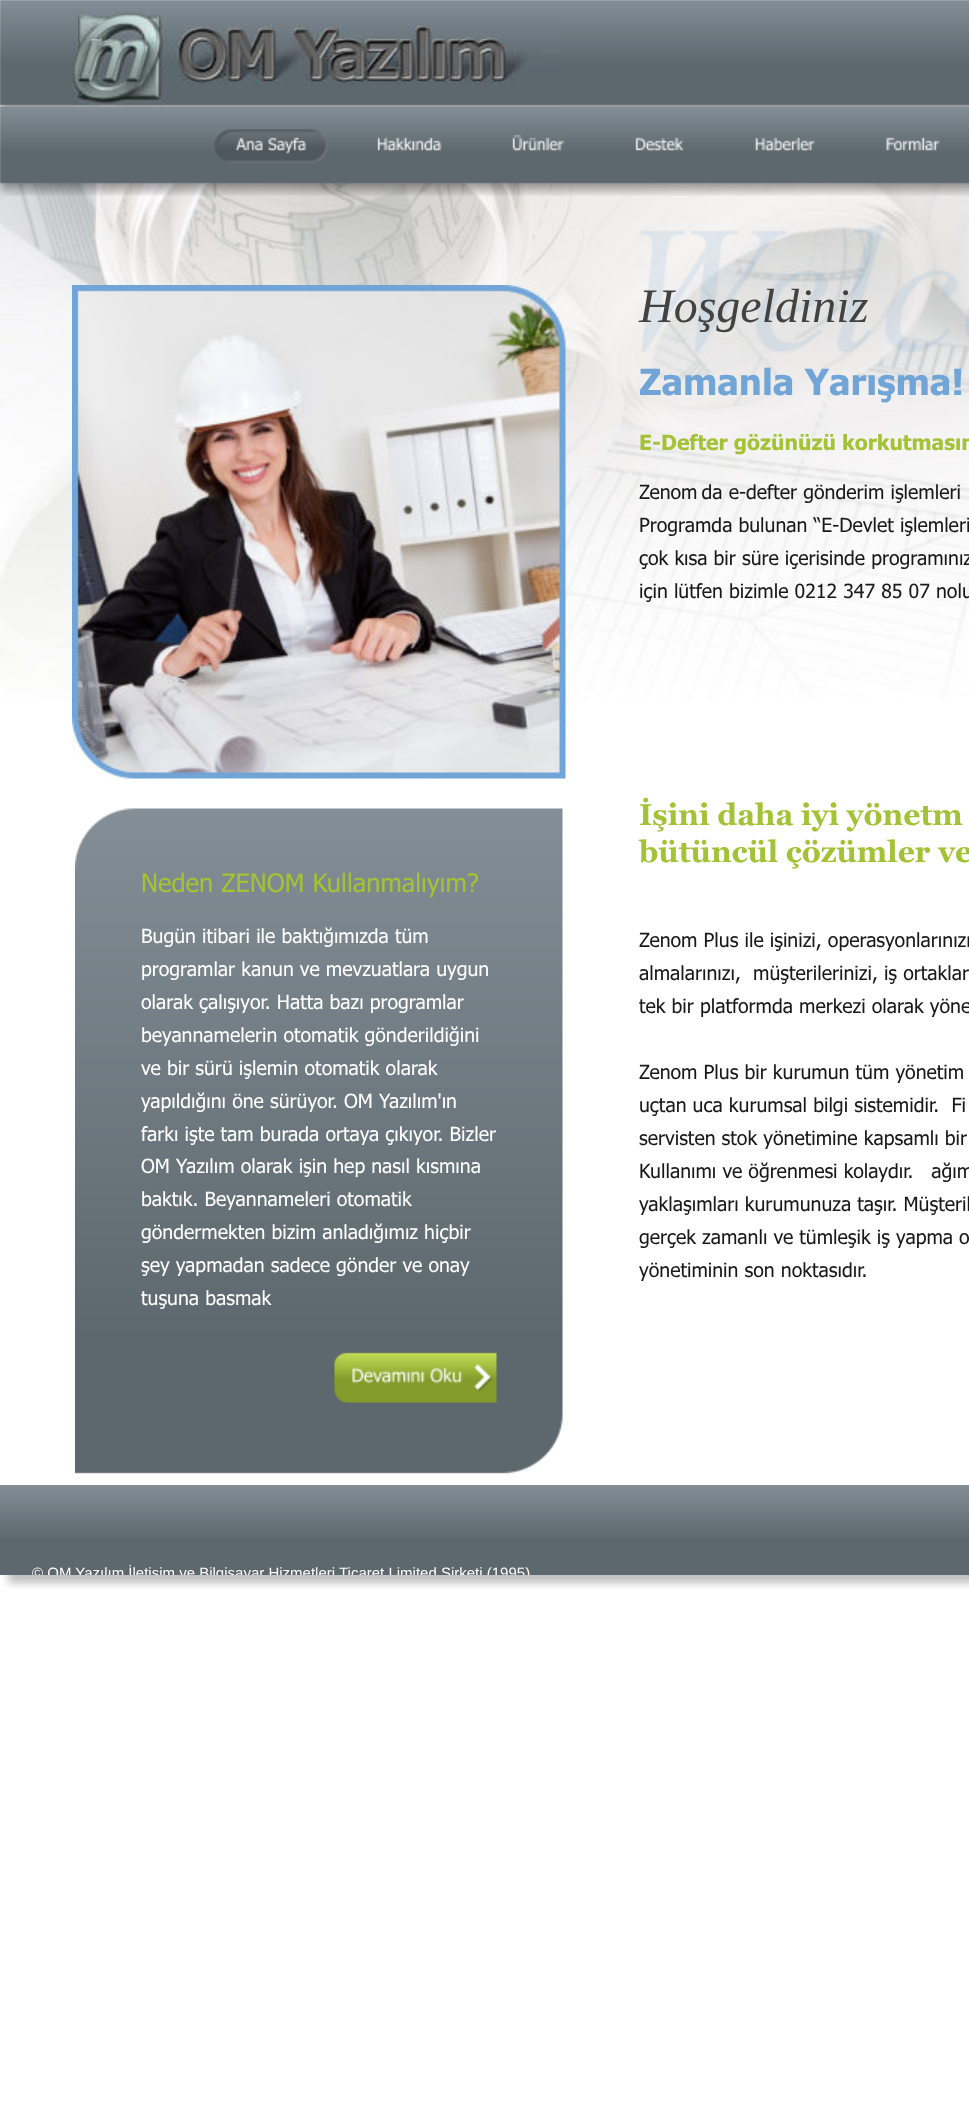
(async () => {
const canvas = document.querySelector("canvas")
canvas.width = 969
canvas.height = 2107
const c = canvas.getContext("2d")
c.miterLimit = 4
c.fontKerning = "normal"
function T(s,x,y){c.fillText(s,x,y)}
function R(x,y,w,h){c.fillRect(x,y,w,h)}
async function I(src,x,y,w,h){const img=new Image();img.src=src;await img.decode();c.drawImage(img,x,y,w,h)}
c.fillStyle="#fff"
R(0,0,969,2107)
c.save()
c.beginPath()
c.rect(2,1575,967,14)
c.clip()
c.fillStyle="#00000040"
c.filter="blur(4.5px)"
c.beginPath()
c.rect(8,8,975,1575)
c.fill()
c.filter="none"
c.restore()
await I("9.png",0,181,969,519)
await I("7.png",0,0,969,196)
await I("1.png",214,129,114,35)
await I("2.png",377,137,65,15)
await I("3.png",512,134,53,18)
await I("4.png",635,137,49,15)
await I("5.png",754,137,61,15)
await I("6.png",886,137,54,15)
await I("8.png",72,12,489,95)
await I("10.png",72,285,494,494)
await I("11.png",639,225,330,128)
await I("12.png",75,808,488,666)
c.font="italic 48px Liberation Serif"
c.fillStyle="#424242"
T("Hoşgeldiniz",639,322)
c.font="bold 36px Tahoma"
c.fillStyle="#71a5d7"
T("Zamanla Yarışma!",639,395)
c.font="bold 21px Tahoma"
c.fillStyle="#a4c236"
T("E-Defter gözünüzü korkutmasın",639,450)
c.font="19.5px Tahoma"
c.fillStyle="#191919"
T("Zenom’da e-defter gönderim işlemleri",639,499)
T("Programda bulunan “E-Devlet işlemleri",639,532)
T("çok kısa bir süre içerisinde programınız",639,565)
T("için lütfen bizimle 0212 347 85 07 nolu",639,598)
c.font="bold 30px Georgia"
c.fillStyle="#a4c236"
T("İşini daha iyi yönetm",639,825)
T("bütüncül çözümler ve",639,862)
c.font="19.5px Tahoma"
c.fillStyle="#191919"
T("Zenom Plus ile işinizi, operasyonlarınızı",639,947)
T("almalarınızı,  müşterilerinizi, iş ortaklar",639,980)
T("tek bir platformda merkezi olarak yöne",639,1013)
T("Zenom Plus bir kurumun tüm yönetim",639,1079)
T("uçtan uca kurumsal bilgi sistemidir.  Fi",639,1112)
T("servisten stok yönetimine kapsamlı bir",639,1145)
T("Kullanımı ve öğrenmesi kolaydır. Çağım",639,1178)
T("yaklaşımları kurumunuza taşır. Müşteril",639,1211)
T("gerçek zamanlı ve tümleşik iş yapma o",639,1244)
T("yönetiminin son noktasıdır.",639,1277)
c.font="25.5px Tahoma"
c.fillStyle="#a4c236"
T("Neden ZENOM Kullanmalıyım?",141,892)
c.font="19.5px Tahoma"
c.fillStyle="#fff"
T("Bugün itibari ile baktığımızda tüm",141,943)
T("programlar kanun ve mevzuatlara uygun",141,976)
T("olarak çalışıyor. Hatta bazı programlar",141,1009)
T("beyannamelerin otomatik gönderildiğini",141,1042)
T("ve bir sürü işlemin otomatik olarak",141,1075)
T("yapıldığını öne sürüyor. OM Yazılım'ın",141,1108)
T("farkı işte tam burada ortaya çıkıyor. Bizler",141,1141)
T("OM Yazılım olarak işin hep nasıl kısmına",141,1173)
T("baktık. Beyannameleri otomatik",141,1206)
T("göndermekten bizim anladığımız hiçbir",141,1239)
T("şey yapmadan sadece gönder ve onay",141,1272)
T("tuşuna basmak",141,1305)
await I("13.png",334,1352,163,51)
await I("14.png",0,1485,969,90)
c.save()
c.beginPath()
c.rect(0,0,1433,1575)
c.clip()
c.font="15px Liberation Sans"
T("© OM Yazılım İletişim ve Bilgisayar Hizmetleri Ticaret Limited Şirketi (1995)",32,1578)
c.restore()
})()
